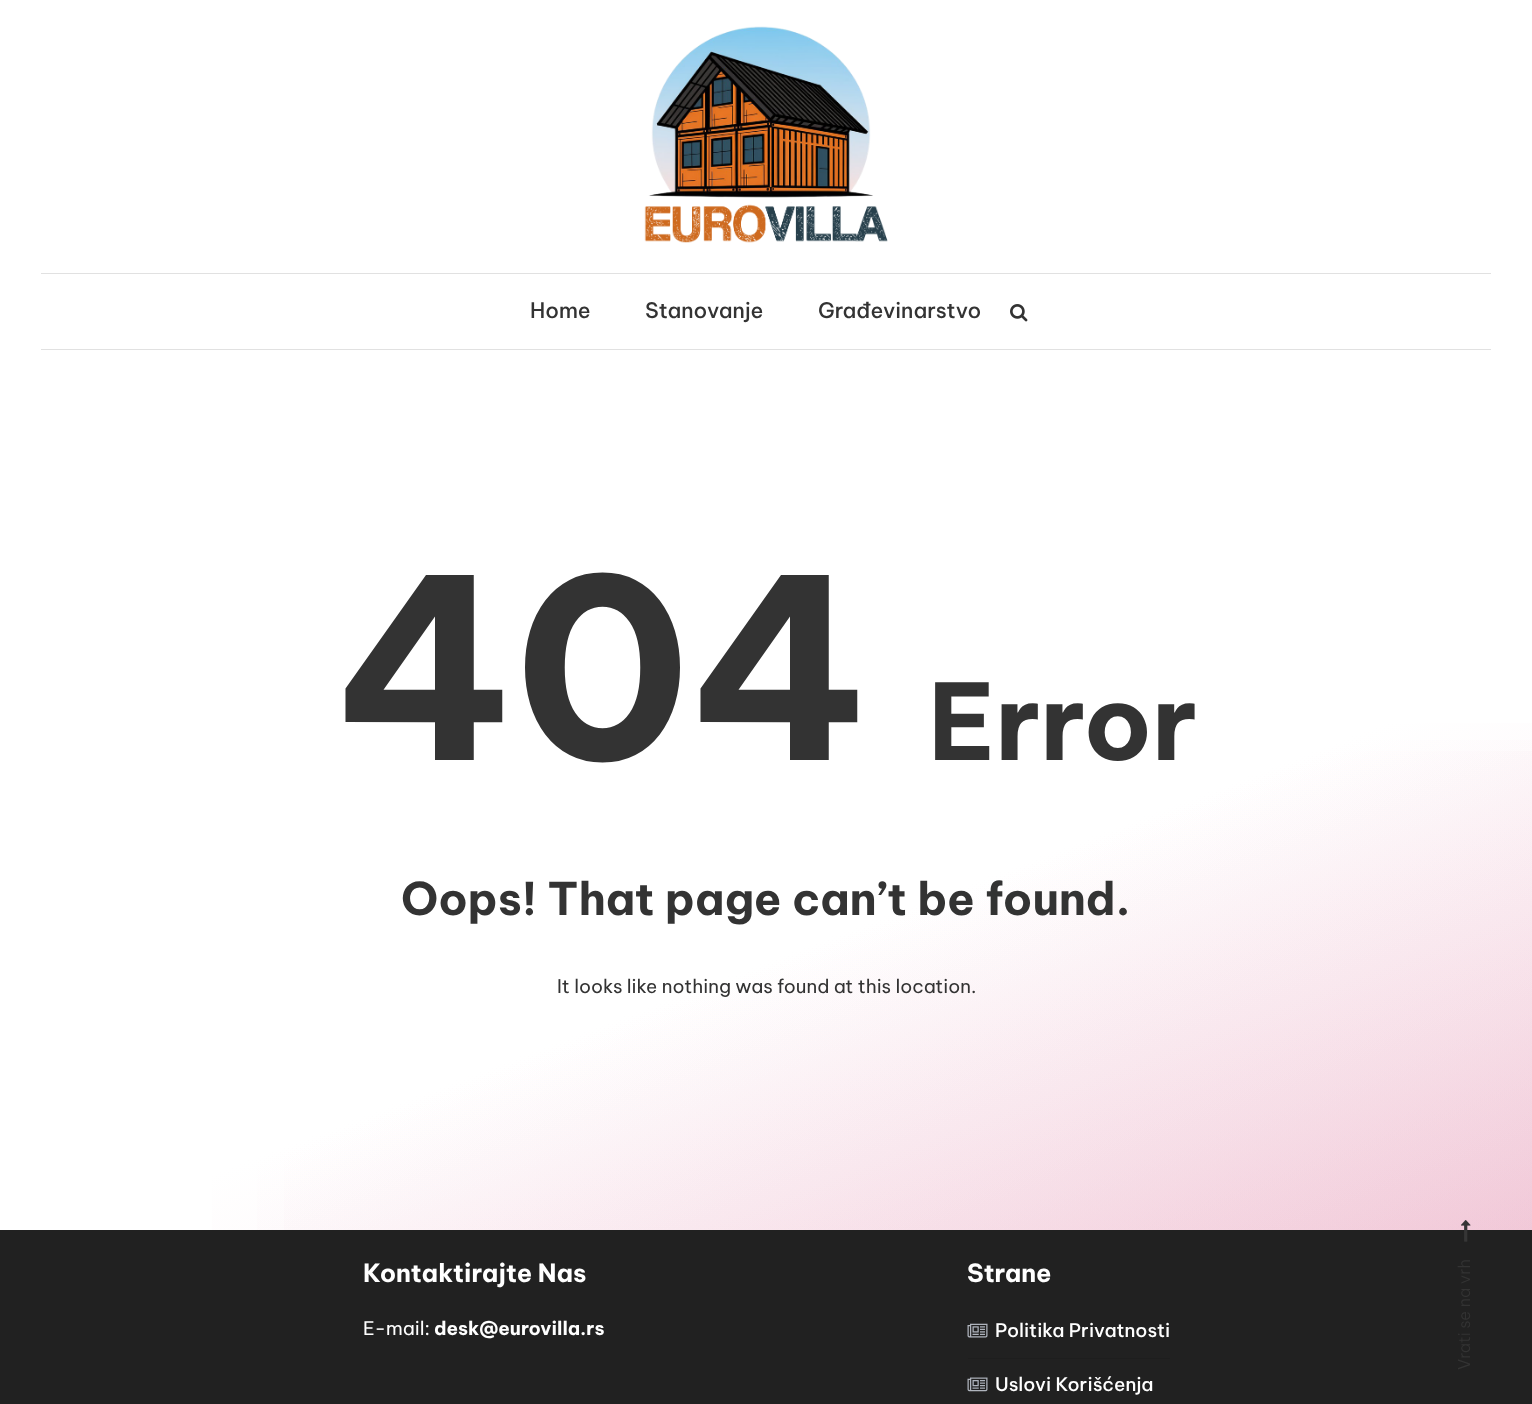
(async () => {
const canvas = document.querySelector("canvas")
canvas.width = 1532
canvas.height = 1404
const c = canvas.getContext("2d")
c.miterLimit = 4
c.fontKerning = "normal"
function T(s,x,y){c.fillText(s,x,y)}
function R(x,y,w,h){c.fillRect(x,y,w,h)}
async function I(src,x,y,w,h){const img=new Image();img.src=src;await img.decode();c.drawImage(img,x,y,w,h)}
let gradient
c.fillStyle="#fff"
R(0,0,1532,1404)
await I("1.png",644,26,244,217)
c.fillStyle="#e1e1e1"
R(41,273,1450,1)
R(41,349,1450,1)
c.font="500 21.25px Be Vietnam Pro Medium"
c.fillStyle="#333"
T("Home",530,318)
T("Stanovanje",645,318)
T("Građevinarstvo",818,318)
await I("2.png",1010,304,18,18)
gradient = c.createLinearGradient(1198,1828,334,-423)
gradient.addColorStop(.15,"#fae9ef")
gradient.addColorStop(.4,"#fff")
c.fillStyle = gradient
R(257,740,1275,490)
gradient = c.createLinearGradient(1198,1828,334,-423)
gradient.addColorStop(.15,"#c2185b1a")
gradient.addColorStop(.4,"#ffffff1a")
c.fillStyle = gradient
R(212,723,1320,507)
R(284,751,1248,479)
c.font="bold 250px Be Vietnam Pro"
c.fillStyle="#333"
T("404",335,760)
c.font="bold 105px Be Vietnam Pro"
T("Error",928,760)
c.font="bold 45px Be Vietnam Pro"
T("Oops! That page can’t be found.",401,915)
c.font="18.75px Be Vietnam Pro"
T("It looks like nothing was found at this location.",557,993)
c.fillStyle="#212121"
R(0,1230,1532,174)
c.font="bold 25px Be Vietnam Pro"
c.fillStyle="#fff"
T("Kontaktirajte Nas",363,1282)
c.font="18.75px Be Vietnam Pro"
T("E-mail:",363,1335)
c.font="bold 18.75px Be Vietnam Pro"
T("desk@eurovilla.rs",434,1335)
c.font="bold 25px Be Vietnam Pro"
T("Strane",967,1282)
c.fillStyle="#1e1e1e"
R(968,1358,202,1)
await I("3.png",967,1323,21,15)
c.font="500 18.75px Be Vietnam Pro Medium"
c.fillStyle="#fff"
T("Politika Privatnosti",995,1337)
await I("4.png",967,1377,21,15)
T("Uslovi Korišćenja",995,1391)
await I("5.png",1461,1220,10,22)
c.font="300 16.25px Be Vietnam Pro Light"
c.fillStyle="#333"
c.save()
c.translate(1470,1370)
c.rotate(-90 * Math.PI / 180)
c.fillText("Vrati se na vrh",0,0)
c.restore()
})()
